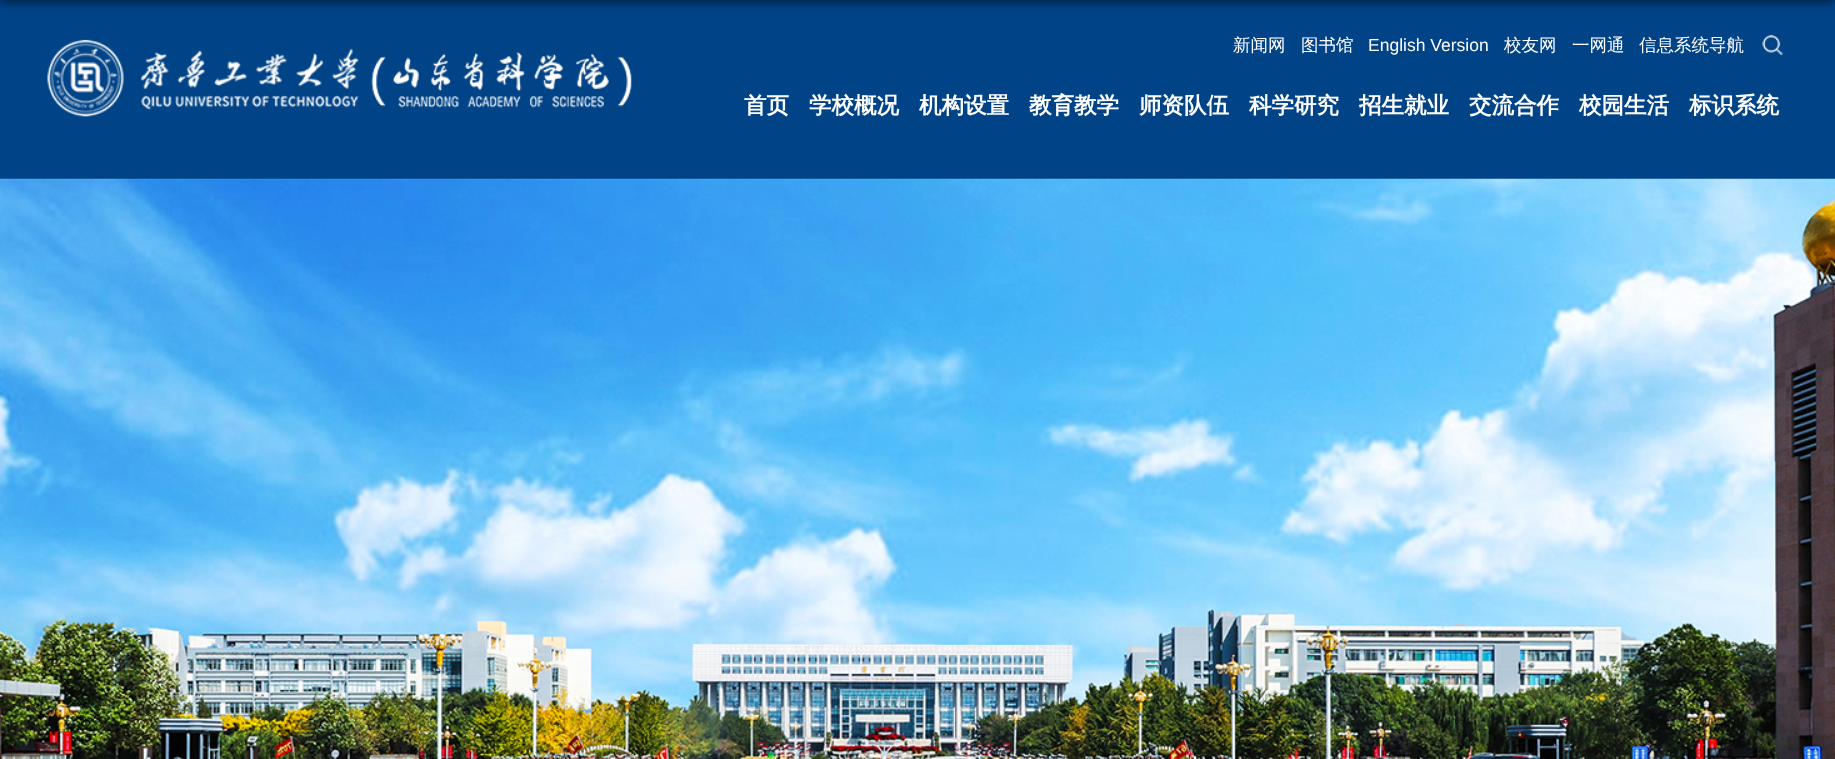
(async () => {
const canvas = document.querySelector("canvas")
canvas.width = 1835
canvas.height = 759
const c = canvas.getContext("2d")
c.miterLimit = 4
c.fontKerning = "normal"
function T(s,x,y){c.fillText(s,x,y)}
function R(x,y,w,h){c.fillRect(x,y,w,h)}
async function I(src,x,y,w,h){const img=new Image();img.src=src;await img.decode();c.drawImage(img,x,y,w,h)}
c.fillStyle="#004387"
R(0,0,1835,759)
c.fillStyle="#000000cc"
c.filter="blur(6px)"
c.beginPath()
c.rect(0,-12,1835,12)
c.fill()
c.filter="none"
await I("1.png",47,39,585,78)
c.font="500 17.5px WenQuanYi Zen Hei"
c.fillStyle="#fff"
T("新闻网",1233,51)
T("图书馆",1301,51)
c.font="17.5px Liberation Sans"
T("English Version",1368,51)
c.font="500 17.5px WenQuanYi Zen Hei"
T("校友网",1504,51)
T("一网通",1572,51)
T("信息系统导航",1639,51)
await I("2.png",1762,34,21,22)
c.font="bold 22.5px WenQuanYi Zen Hei"
T("首页",744,113)
T("学校概况",809,113)
T("机构设置",919,113)
T("教育教学",1029,113)
T("师资队伍",1139,113)
T("科学研究",1249,113)
T("招生就业",1359,113)
T("交流合作",1469,113)
T("校园生活",1579,113)
T("标识系统",1689,113)
await I("3.png",0,178,1835,581)
})()
